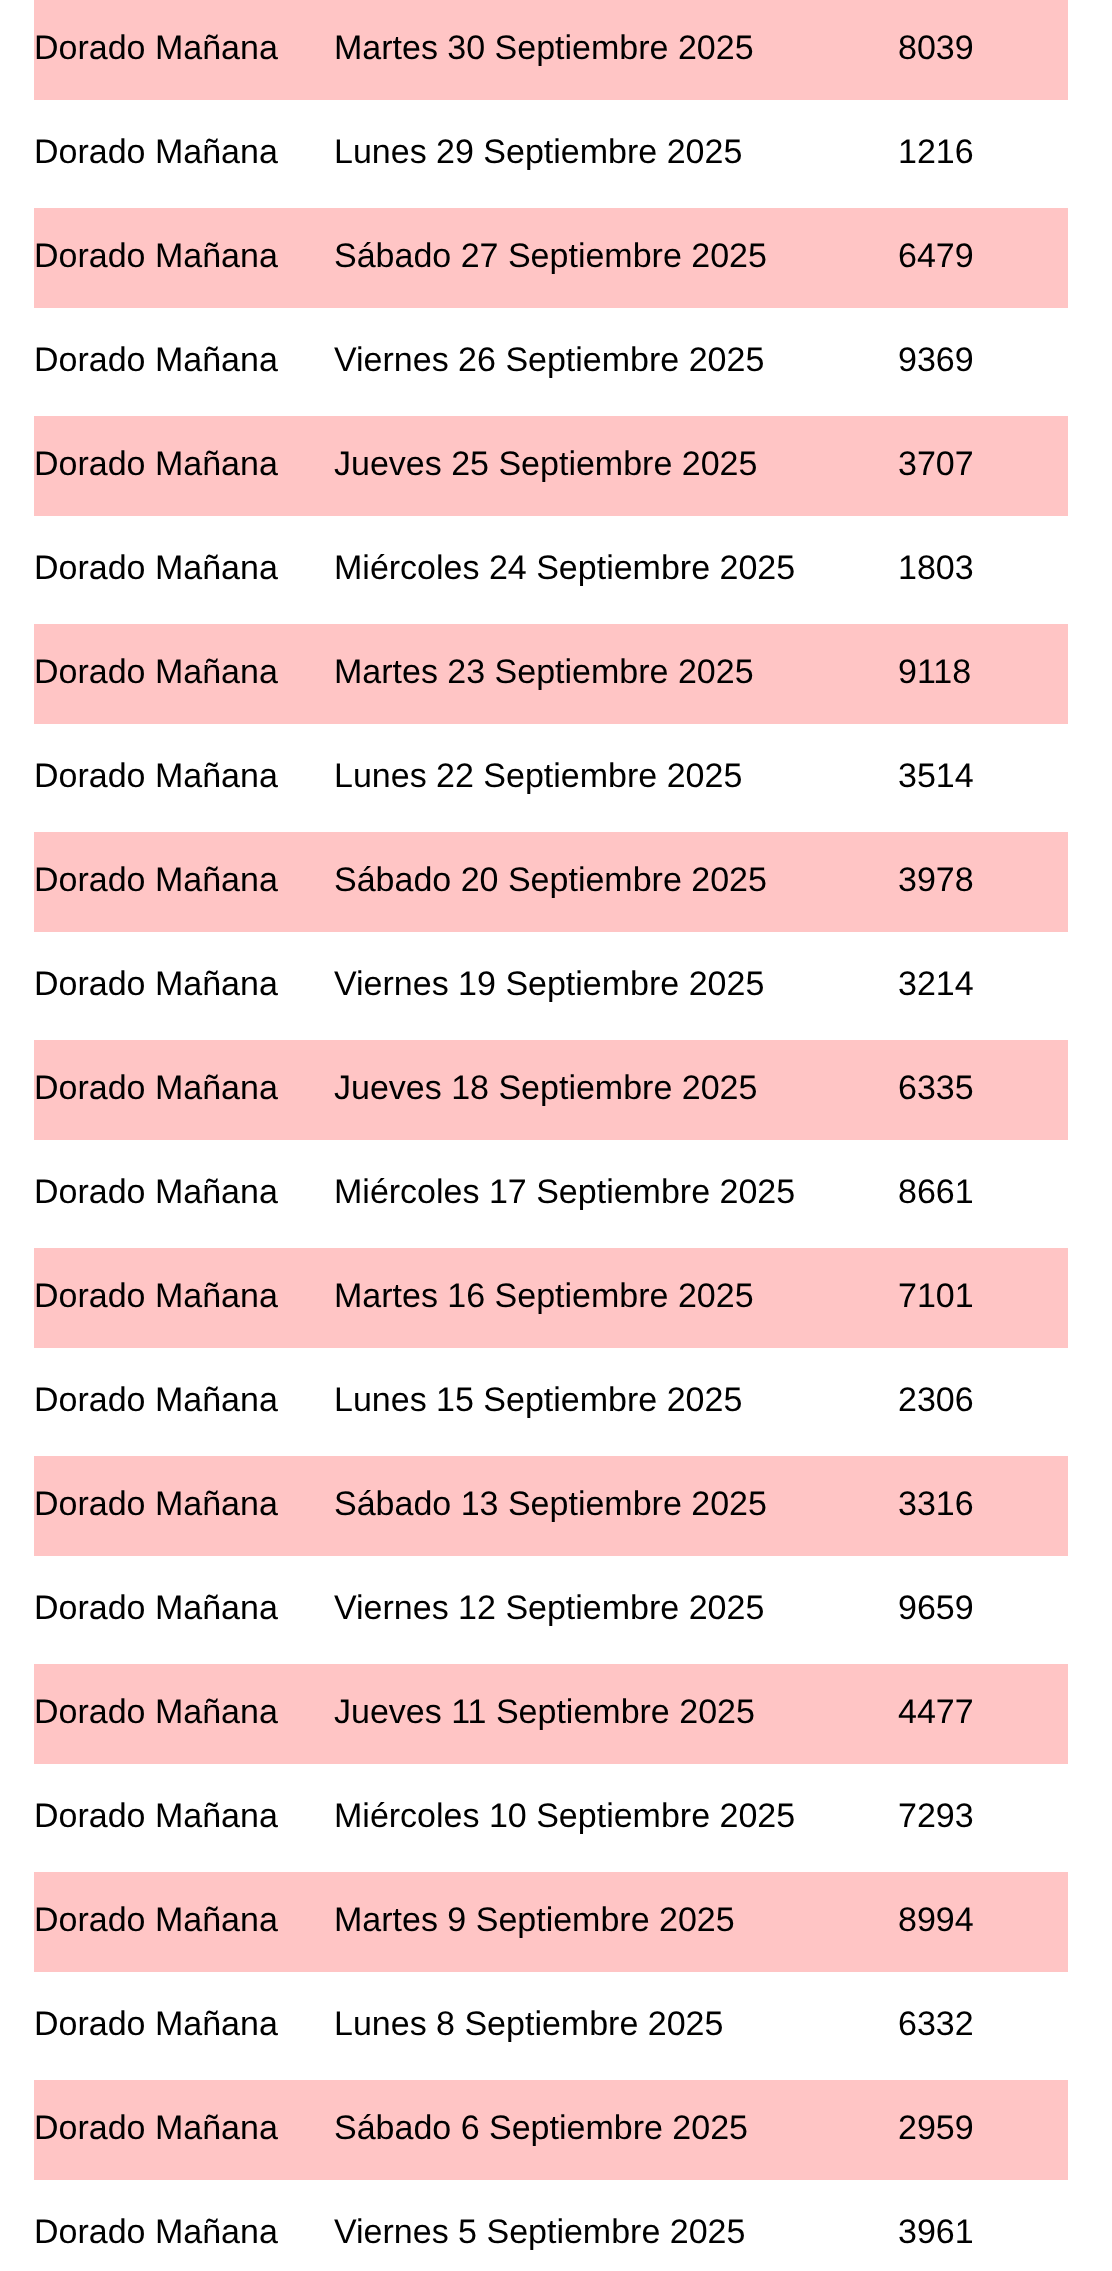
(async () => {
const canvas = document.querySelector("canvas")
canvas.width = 1112
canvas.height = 2271
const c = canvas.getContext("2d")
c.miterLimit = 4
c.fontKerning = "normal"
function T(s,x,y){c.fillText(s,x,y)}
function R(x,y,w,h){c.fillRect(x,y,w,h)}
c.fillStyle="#fff"
R(0,0,1112,2271)
c.fillStyle="#ffc5c5"
R(34,0,1034,100)
c.font="34px Liberation Sans"
c.fillStyle="#000"
T("Dorado Mañana",34,59)
T("Martes 30 Septiembre 2025",334,59)
T("8039",898,59)
T("Dorado Mañana",34,163)
T("Lunes 29 Septiembre 2025",334,163)
T("1216",898,163)
c.fillStyle="#ffc5c5"
R(34,208,1034,100)
c.fillStyle="#000"
T("Dorado Mañana",34,267)
T("Sábado 27 Septiembre 2025",334,267)
T("6479",898,267)
T("Dorado Mañana",34,371)
T("Viernes 26 Septiembre 2025",334,371)
T("9369",898,371)
c.fillStyle="#ffc5c5"
R(34,416,1034,100)
c.fillStyle="#000"
T("Dorado Mañana",34,475)
T("Jueves 25 Septiembre 2025",334,475)
T("3707",898,475)
T("Dorado Mañana",34,579)
T("Miércoles 24 Septiembre 2025",334,579)
T("1803",898,579)
c.fillStyle="#ffc5c5"
R(34,624,1034,100)
c.fillStyle="#000"
T("Dorado Mañana",34,683)
T("Martes 23 Septiembre 2025",334,683)
T("9118",898,683)
T("Dorado Mañana",34,787)
T("Lunes 22 Septiembre 2025",334,787)
T("3514",898,787)
c.fillStyle="#ffc5c5"
R(34,832,1034,100)
c.fillStyle="#000"
T("Dorado Mañana",34,891)
T("Sábado 20 Septiembre 2025",334,891)
T("3978",898,891)
T("Dorado Mañana",34,995)
T("Viernes 19 Septiembre 2025",334,995)
T("3214",898,995)
c.fillStyle="#ffc5c5"
R(34,1040,1034,100)
c.fillStyle="#000"
T("Dorado Mañana",34,1099)
T("Jueves 18 Septiembre 2025",334,1099)
T("6335",898,1099)
T("Dorado Mañana",34,1203)
T("Miércoles 17 Septiembre 2025",334,1203)
T("8661",898,1203)
c.fillStyle="#ffc5c5"
R(34,1248,1034,100)
c.fillStyle="#000"
T("Dorado Mañana",34,1307)
T("Martes 16 Septiembre 2025",334,1307)
T("7101",898,1307)
T("Dorado Mañana",34,1411)
T("Lunes 15 Septiembre 2025",334,1411)
T("2306",898,1411)
c.fillStyle="#ffc5c5"
R(34,1456,1034,100)
c.fillStyle="#000"
T("Dorado Mañana",34,1515)
T("Sábado 13 Septiembre 2025",334,1515)
T("3316",898,1515)
T("Dorado Mañana",34,1619)
T("Viernes 12 Septiembre 2025",334,1619)
T("9659",898,1619)
c.fillStyle="#ffc5c5"
R(34,1664,1034,100)
c.fillStyle="#000"
T("Dorado Mañana",34,1723)
T("Jueves 11 Septiembre 2025",334,1723)
T("4477",898,1723)
T("Dorado Mañana",34,1827)
T("Miércoles 10 Septiembre 2025",334,1827)
T("7293",898,1827)
c.fillStyle="#ffc5c5"
R(34,1872,1034,100)
c.fillStyle="#000"
T("Dorado Mañana",34,1931)
T("Martes 9 Septiembre 2025",334,1931)
T("8994",898,1931)
T("Dorado Mañana",34,2035)
T("Lunes 8 Septiembre 2025",334,2035)
T("6332",898,2035)
c.fillStyle="#ffc5c5"
R(34,2080,1034,100)
c.fillStyle="#000"
T("Dorado Mañana",34,2139)
T("Sábado 6 Septiembre 2025",334,2139)
T("2959",898,2139)
T("Dorado Mañana",34,2243)
T("Viernes 5 Septiembre 2025",334,2243)
T("3961",898,2243)
})()
